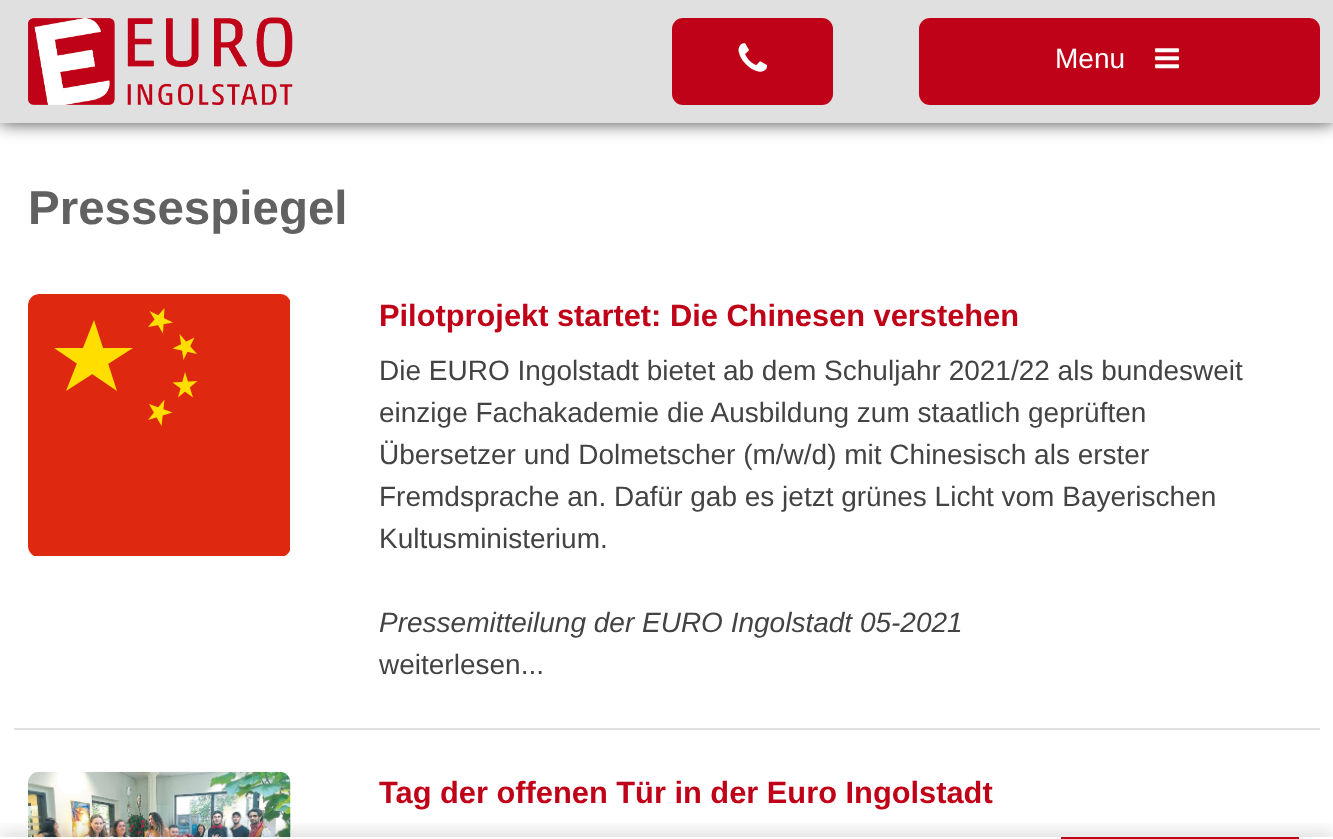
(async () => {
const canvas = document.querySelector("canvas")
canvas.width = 1333
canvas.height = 839
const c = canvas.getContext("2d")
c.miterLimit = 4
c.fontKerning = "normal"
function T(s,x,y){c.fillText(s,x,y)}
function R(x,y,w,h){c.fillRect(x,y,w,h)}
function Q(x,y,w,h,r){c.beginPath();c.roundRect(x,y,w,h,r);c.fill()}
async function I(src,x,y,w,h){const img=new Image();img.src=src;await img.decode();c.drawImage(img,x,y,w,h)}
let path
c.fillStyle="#fff"
R(0,0,1333,839)
c.fillStyle="#434343"
c.filter="blur(9px)"
c.beginPath()
c.rect(0,0,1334,123)
c.fill()
c.filter="none"
c.fillStyle="#e0e0e0"
R(0,0,1333,123)
await I("1.png",28,17,265,88)
c.fillStyle="#c00218"
Q(672,18,161,87,11)
await I("2.png",738,43,30,29)
Q(919,18,401,87,11)
c.font="28px Liberation Sans"
c.fillStyle="#fff"
T("Menu",1055,68)
await I("3.png",1155,48,24,21)
c.font="bold 47.5px Liberation Sans"
c.fillStyle="#616161"
T("Pressespiegel",28,224)
c.fillStyle="#e0e0e0"
R(14,728,1306,2)
c.save()
c.beginPath()
c.roundRect(28,294,263,263,11)
c.clip()
c.fillStyle="#de2910"
c.beginPath()
c.roundRect(28,294,262,262,[11,0,0,0])
c.fill()
c.restore()
c.fillStyle="#ffde00"
path = new Path2D("M133 348l-67 43l28-71l23 71l-63-43z")
c.fill(path)
path = new Path2D("M149.5 311l23.5 11.5l-25 4.5l16.5-19l-1.5 25.5zm30 23l17.5 20l-24.5-5.5l22-11l-11 22.5z")
c.fill(path)
path = new Path2D("M185 372l8 25.5l-20.5-15l25-1.5l-19.5 16.5zm-20.5 27.5l-3 26.5l-12.5-22l23.5 8.5l-24.5 7.5z")
c.fill(path)
c.font="bold 30.8px Liberation Sans"
c.fillStyle="#c00218"
T("Pilotprojekt startet: Die Chinesen verstehen",379,326)
c.font="28px Liberation Sans"
c.fillStyle="#434343"
T("Die EURO Ingolstadt bietet ab dem Schuljahr 2021/22 als bundesweit",379,380)
T("einzige Fachakademie die Ausbildung zum staatlich geprüften",379,422)
T("Übersetzer und Dolmetscher (m/w/d) mit Chinesisch als erster",379,464)
T("Fremdsprache an. Dafür gab es jetzt grünes Licht vom Bayerischen",379,506)
T("Kultusministerium.",379,548)
c.font="italic 28px Liberation Sans"
T("Pressemitteilung der EURO Ingolstadt 05-2021",379,632)
c.font="28px Liberation Sans"
T("weiterlesen...",379,674)
await I("4.png",28,771,263,68)
c.font="bold 30.8px Liberation Sans"
c.fillStyle="#c00218"
T("Tag der offenen Tür in der Euro Ingolstadt",379,803)
c.save()
c.beginPath()
c.rect(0,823,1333,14)
c.clip()
c.fillStyle="#00000080"
c.filter="blur(9px)"
c.beginPath()
c.rect(0,837,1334,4)
c.fill()
c.filter="none"
c.restore()
c.fillStyle="#ffffffe6"
R(28,837,263,2)
c.fillStyle="#c00218"
R(1061,837,238,2)
})()
